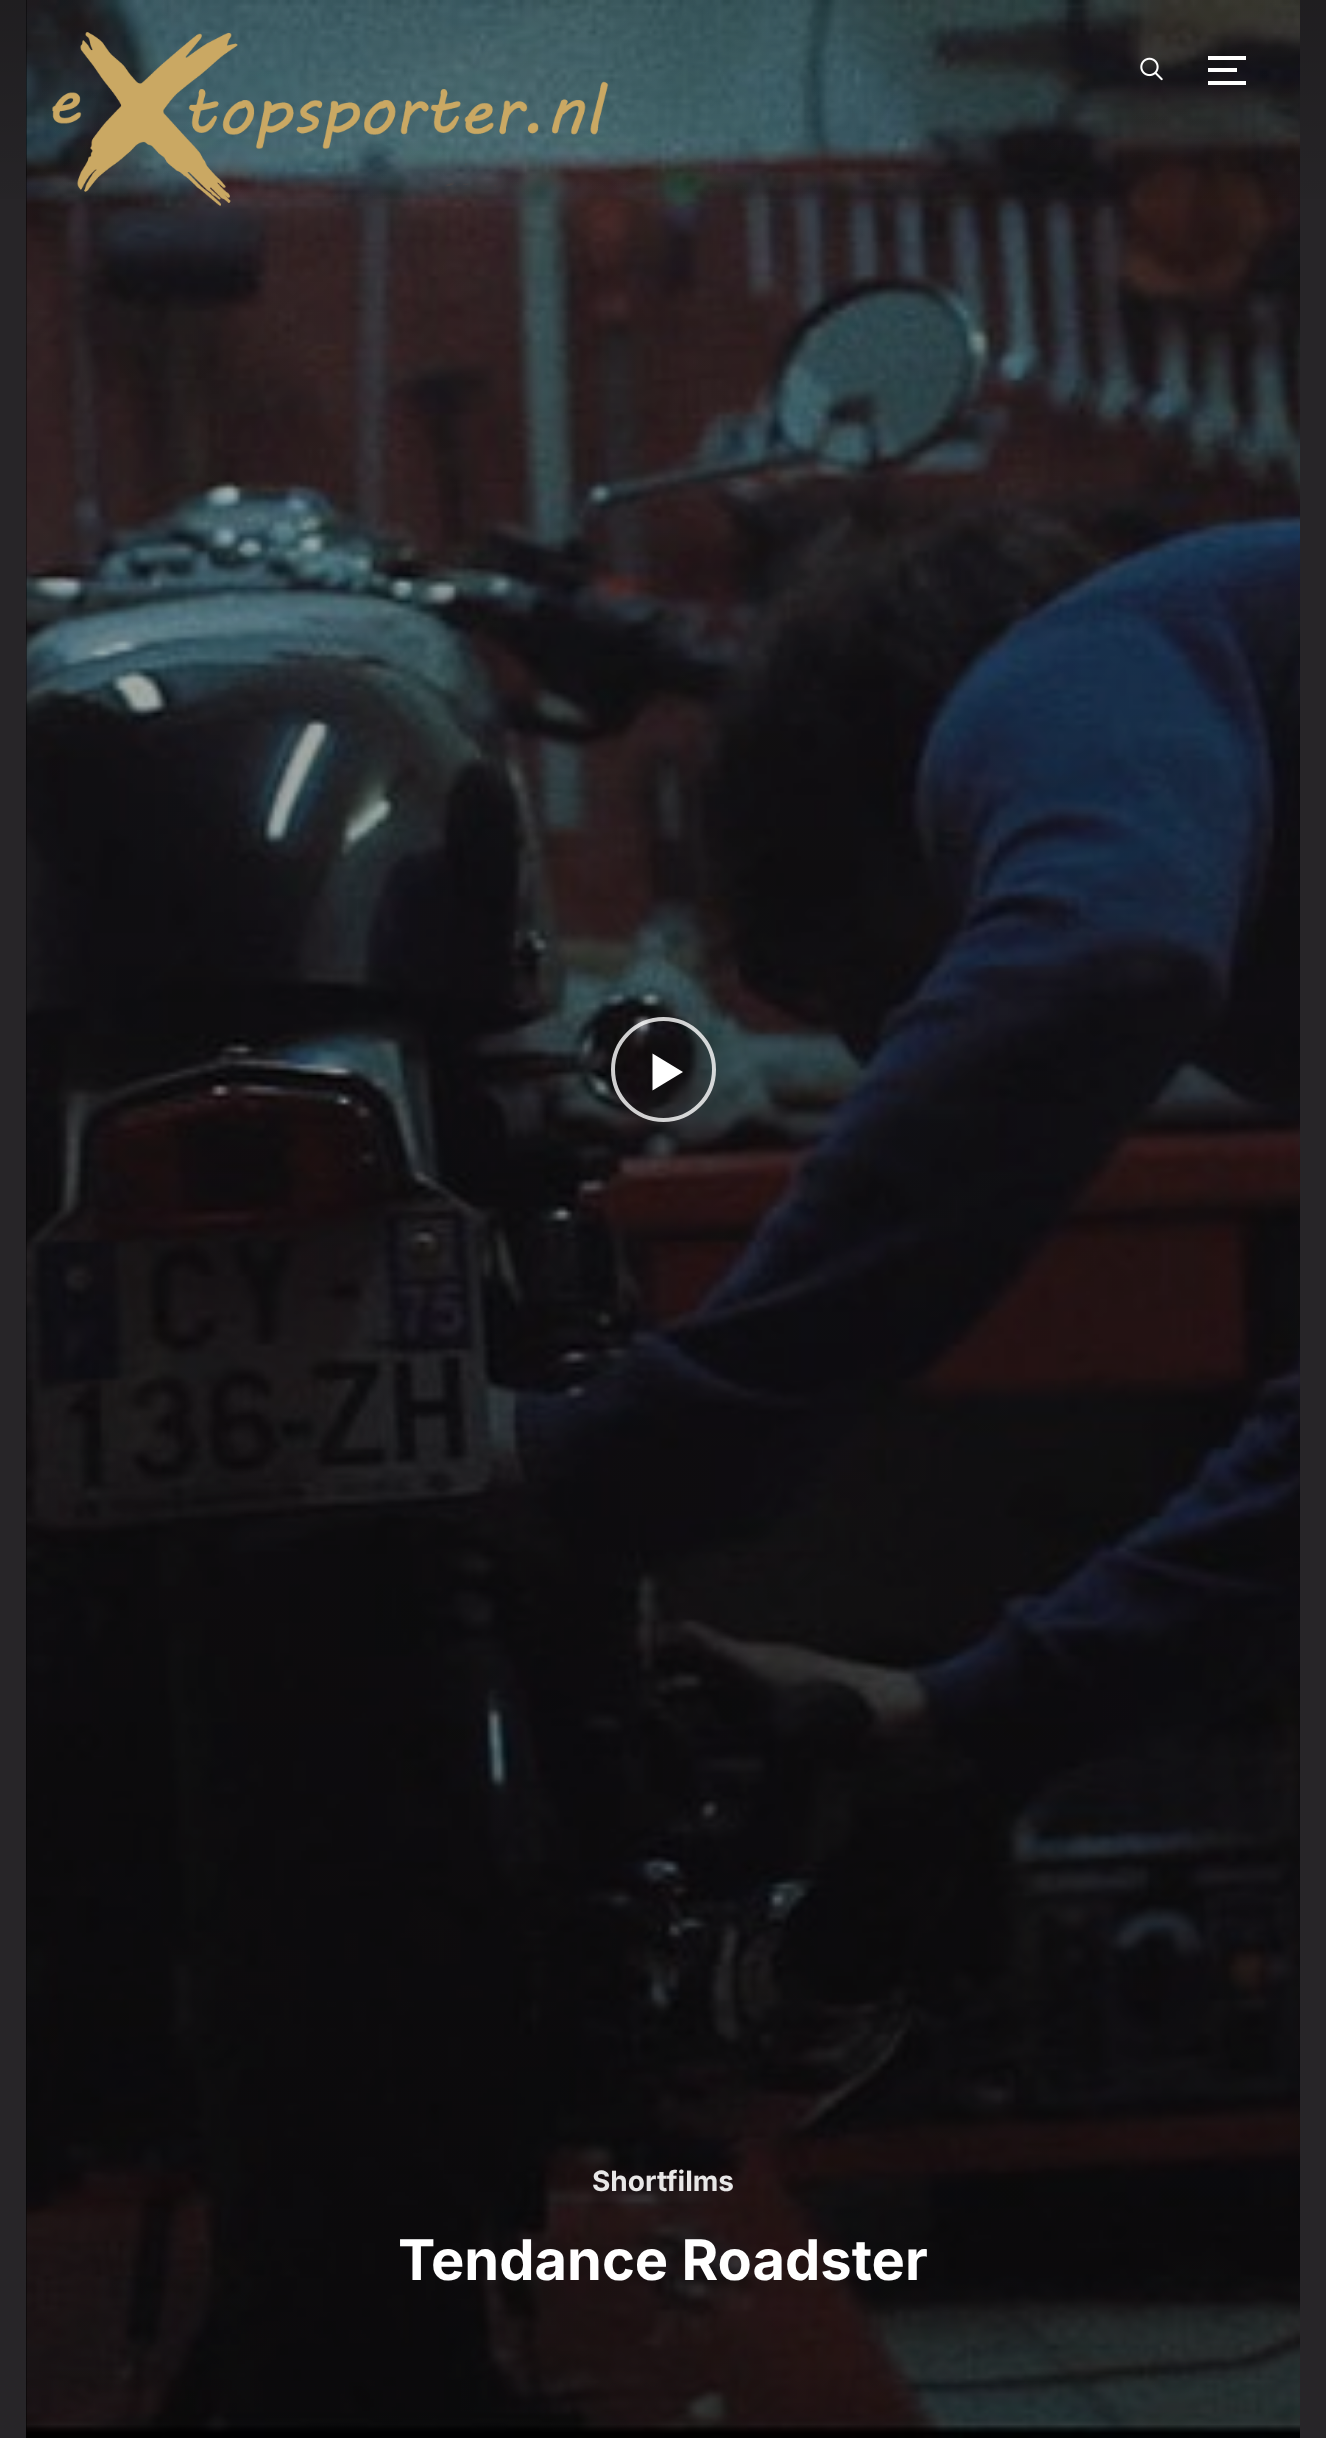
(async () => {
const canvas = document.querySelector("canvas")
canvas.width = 1326
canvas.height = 2438
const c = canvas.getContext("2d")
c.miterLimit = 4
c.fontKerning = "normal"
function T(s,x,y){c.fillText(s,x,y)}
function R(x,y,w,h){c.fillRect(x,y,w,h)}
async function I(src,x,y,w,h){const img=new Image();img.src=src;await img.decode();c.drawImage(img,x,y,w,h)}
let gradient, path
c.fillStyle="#272528"
R(0,0,1326,2438)
c.fillStyle="#000"
R(26,0,1274,2438)
await I("3.png",26,0,1274,2438)
gradient = c.createLinearGradient(663,0,663,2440)
gradient.addColorStop(0,"#00000014")
gradient.addColorStop(1,"#00000066")
c.fillStyle = gradient
R(26,0,1274,2438)
gradient = c.createLinearGradient(663,0,663,238)
gradient.addColorStop(.01,"#00000033")
gradient.addColorStop(1,"#00000000")
c.fillStyle = gradient
R(0,0,1326,199)
await I("1.png",52,32,557,174)
await I("2.png",1140,57,23,24)
c.fillStyle="#fff"
R(1208,56,38,4)
R(1208,68,29,4)
R(1208,81,38,4)
c.beginPath()
c.arc(663.5,1069.5,50.5,0,7)
c.strokeStyle="#ffffffcc"
c.lineWidth=4
c.stroke()
path = new Path2D("M652.5 1053.5l30.5 18.5l-30.5 18.5z")
c.fill(path)
c.font="bold 28px Inter"
c.fillStyle="#e8e7e7"
T("Shortfilms",592,2191)
c.font="bold 56px Inter"
c.fillStyle="#fff"
T("Tendance Roadster",398,2280)
})()
